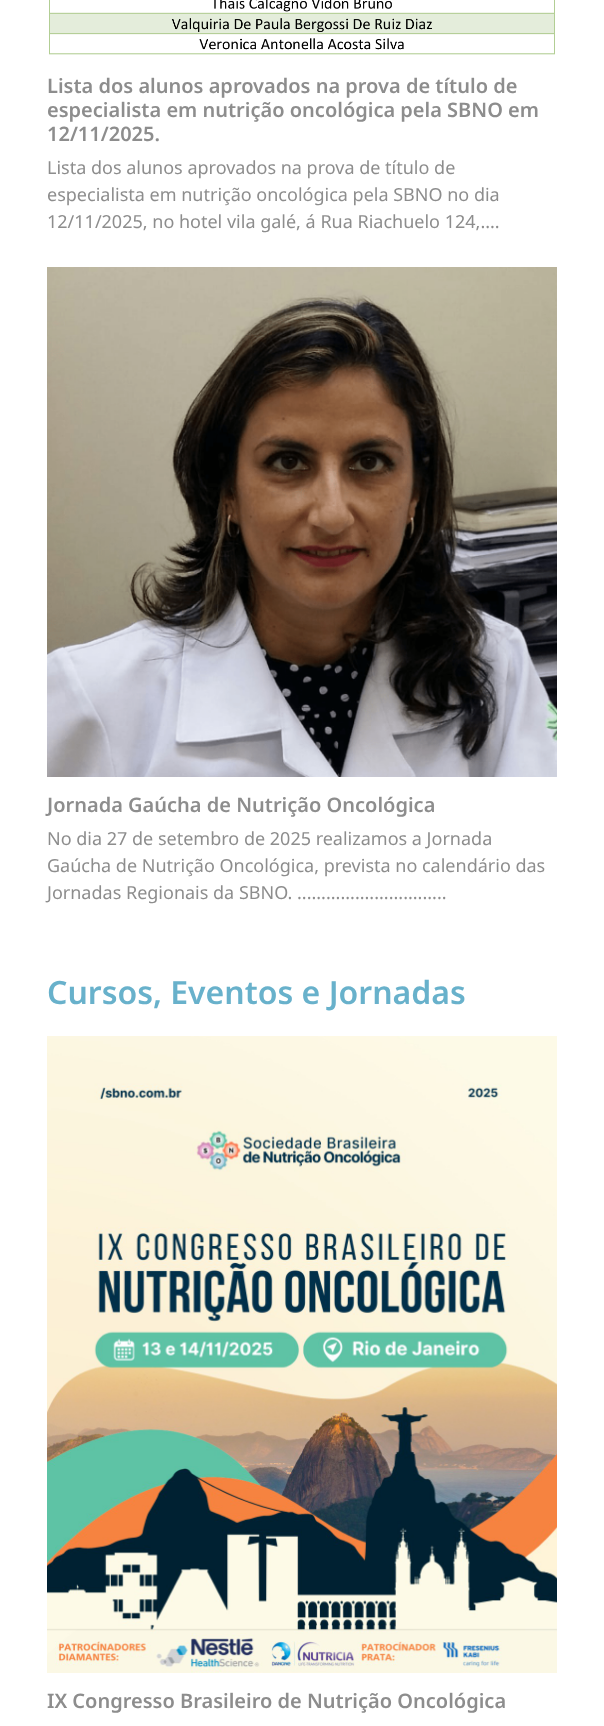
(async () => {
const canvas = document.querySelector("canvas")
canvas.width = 604
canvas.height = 1726
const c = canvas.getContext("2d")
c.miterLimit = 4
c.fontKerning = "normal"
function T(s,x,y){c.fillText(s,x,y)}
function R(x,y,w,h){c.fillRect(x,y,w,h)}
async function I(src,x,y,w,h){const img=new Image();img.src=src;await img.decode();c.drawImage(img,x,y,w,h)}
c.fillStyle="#fff"
R(0,0,604,1726)
await I("1.png",49,0,506,55)
c.font="600 20px Noto Sans"
c.fillStyle="#8d8d8d"
T("Lista dos alunos aprovados na prova de título de",47,93)
T("especialista em nutrição oncológica pela SBNO em",47,117)
T("12/11/2025.",47,141)
c.font="18px Noto Sans"
T("Lista dos alunos aprovados na prova de título de",47,174)
T("especialista em nutrição oncológica pela SBNO no dia",47,201)
T("12/11/2025, no hotel vila galé, á Rua Riachuelo 124,....",47,228)
await I("2.png",47,267,510,510)
c.font="600 20px Noto Sans"
T("Jornada Gaúcha de Nutrição Oncológica",47,812)
c.font="18px Noto Sans"
T("No dia 27 de setembro de 2025 realizamos a Jornada",47,845)
T("Gaúcha de Nutrição Oncológica, prevista no calendário das",47,872)
T("Jornadas Regionais da SBNO. ...............................",47,899)
c.font="600 32px Noto Sans"
c.fillStyle="#68b1cb"
T("Cursos, Eventos e Jornadas",47,1004)
await I("3.png",47,1036,510,637)
c.font="600 20px Noto Sans"
c.fillStyle="#8d8d8d"
T("IX Congresso Brasileiro de Nutrição Oncológica",47,1708)
})()
